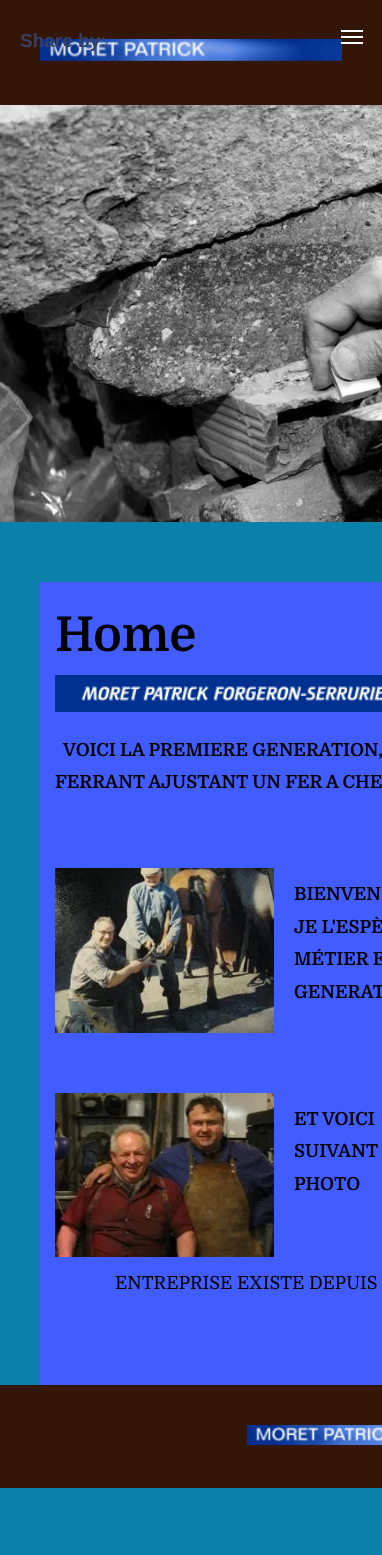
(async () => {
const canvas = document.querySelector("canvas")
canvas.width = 382
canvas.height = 1555
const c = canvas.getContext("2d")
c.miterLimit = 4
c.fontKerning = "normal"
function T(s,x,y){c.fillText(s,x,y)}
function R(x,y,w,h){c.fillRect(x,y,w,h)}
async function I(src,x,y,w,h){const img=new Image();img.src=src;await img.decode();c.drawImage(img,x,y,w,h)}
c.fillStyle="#0b80aa"
R(0,0,382,1555)
c.fillStyle="#341606"
R(0,0,382,105)
await I("1.png",40,39,302,22)
c.font="bold 19px Liberation Sans"
c.fillStyle="#393f61"
T("Share by:",20,47)
c.fillStyle="#fff"
R(341,30,22,2)
R(341,36,22,2)
R(341,42,22,2)
await I("2.png",0,105,382,417)
c.fillStyle="#425dff"
R(40,582,342,803)
c.font="bold 48px Domine"
c.fillStyle="#000"
T("Home",55,651)
await I("3.png",55,675,327,37)
c.font="bold 18px Domine"
T("VOICI LA PREMIERE GENERATION,",63,756)
T("FERRANT AJUSTANT UN FER A CHE",55,788)
await I("4.png",55,868,219,165)
T("BIENVEN",294,900)
T("JE L'ESPÈ",294,933)
T("MÉTIER E",294,965)
T("GENERAT",294,998)
await I("5.png",55,1093,219,164)
T("ET VOICI",294,1125)
T("SUIVANT",294,1157)
T("PHOTO",294,1190)
c.font="18px Domine"
T("ENTREPRISE EXISTE DEPUIS",115,1289)
c.fillStyle="#341606"
R(0,1385,382,103)
await I("6.png",247,1425,135,20)
})()
